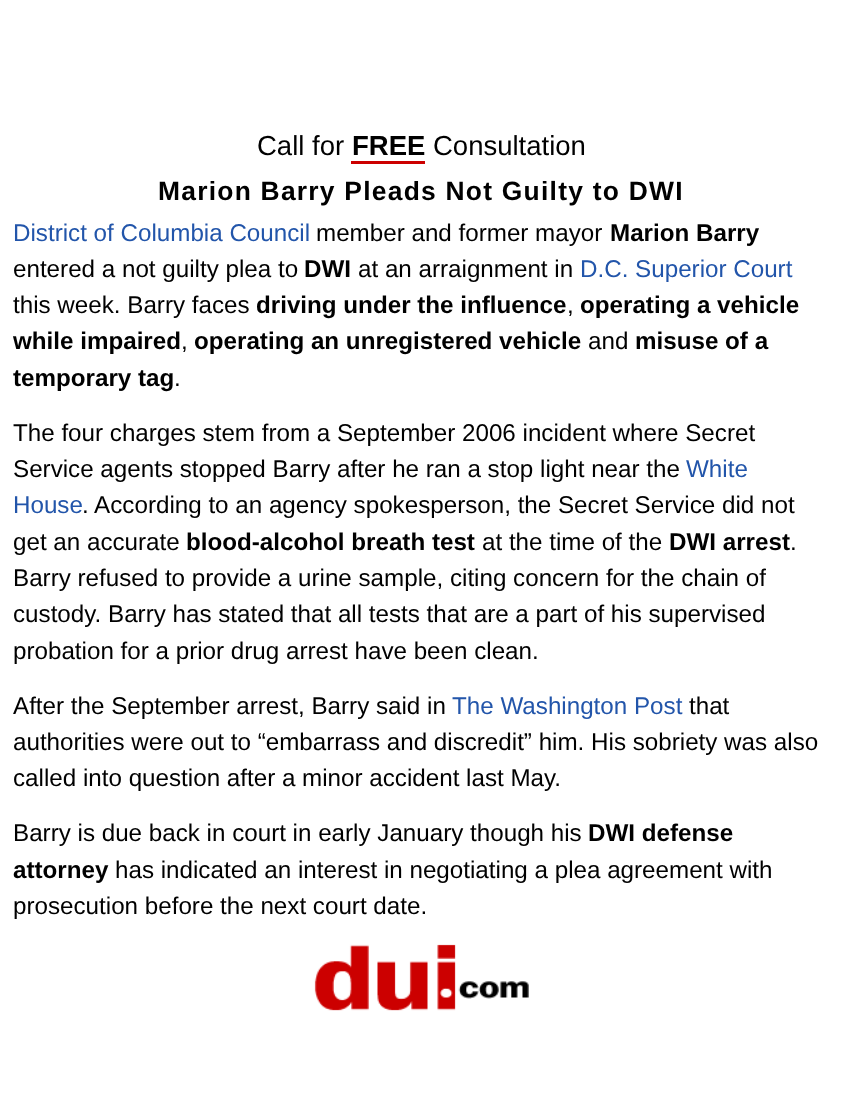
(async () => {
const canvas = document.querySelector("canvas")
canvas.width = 842
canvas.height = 1093
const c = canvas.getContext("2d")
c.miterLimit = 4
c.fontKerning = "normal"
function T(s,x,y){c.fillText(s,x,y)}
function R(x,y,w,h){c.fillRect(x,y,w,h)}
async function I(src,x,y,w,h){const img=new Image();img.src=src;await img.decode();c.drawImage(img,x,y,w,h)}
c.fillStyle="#fff"
R(0,0,842,1093)
c.font="27.5px Liberation Sans"
c.fillStyle="#000"
T("Call for",257,155)
c.font="bold 27.5px Liberation Sans"
T("FREE",352,155)
c.fillStyle="#c00"
R(351,161,74,3)
c.font="27.5px Liberation Sans"
c.fillStyle="#000"
T("Consultation",433,155)
c.letterSpacing="1.25px"
c.font="bold 26.4px Liberation Sans"
T("Marion Barry Pleads Not Guilty to DWI",158,200)
c.letterSpacing="0px"
c.font="24.2px Liberation Sans"
c.fillStyle="#25a"
T("District of Columbia Council",13,241)
c.fillStyle="#000"
T("member and former mayor",316,241)
c.font="bold 24.2px Liberation Sans"
T("Marion Barry",610,241)
c.font="24.2px Liberation Sans"
T("entered a not guilty plea to",13,277)
c.font="bold 24.2px Liberation Sans"
T("DWI",304,277)
c.font="24.2px Liberation Sans"
T("at an arraignment in",358,277)
c.fillStyle="#25a"
T("D.C. Superior Court",580,277)
c.fillStyle="#000"
T("this week. Barry faces",13,313)
c.font="bold 24.2px Liberation Sans"
T("driving under the influence",256,313)
c.font="24.2px Liberation Sans"
T(",",567,313)
c.font="bold 24.2px Liberation Sans"
T("operating a vehicle",580,313)
T("while impaired",13,349)
c.font="24.2px Liberation Sans"
T(",",181,349)
c.font="bold 24.2px Liberation Sans"
T("operating an unregistered vehicle",194,349)
c.font="24.2px Liberation Sans"
T("and",588,349)
c.font="bold 24.2px Liberation Sans"
T("misuse of a",635,349)
c.save()
c.beginPath()
c.rect(13,214,817,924)
c.clip()
T("temporary tag",13,386)
c.restore()
c.font="24.2px Liberation Sans"
T(".",174,386)
T("The four charges stem from a September 2006 incident where Secret",13,441)
T("Service agents stopped Barry after he ran a stop light near the",13,477)
c.fillStyle="#25a"
T("White",686,477)
T("House",13,513)
c.fillStyle="#000"
T(". According to an agency spokesperson, the Secret Service did not",82,513)
T("get an accurate",13,550)
c.font="bold 24.2px Liberation Sans"
T("blood-alcohol breath test",186,550)
c.font="24.2px Liberation Sans"
T("at the time of the",482,550)
c.font="bold 24.2px Liberation Sans"
T("DWI arrest",669,550)
c.font="24.2px Liberation Sans"
T(".",790,550)
T("Barry refused to provide a urine sample, citing concern for the chain of",13,586)
T("custody. Barry has stated that all tests that are a part of his supervised",13,622)
T("probation for a prior drug arrest have been clean.",13,659)
T("After the September arrest, Barry said in",13,714)
c.fillStyle="#25a"
T("The Washington Post",452,714)
c.fillStyle="#000"
T("that",689,714)
T("authorities were out to “embarrass and discredit” him. His sobriety was also",13,750)
T("called into question after a minor accident last May.",13,786)
T("Barry is due back in court in early January though his",13,841)
c.font="bold 24.2px Liberation Sans"
T("DWI defense",588,841)
T("attorney",13,878)
c.font="24.2px Liberation Sans"
T("has indicated an interest in negotiating a plea agreement with",115,878)
T("prosecution before the next court date.",13,914)
await I("1.png",314,944,215,67)
})()
